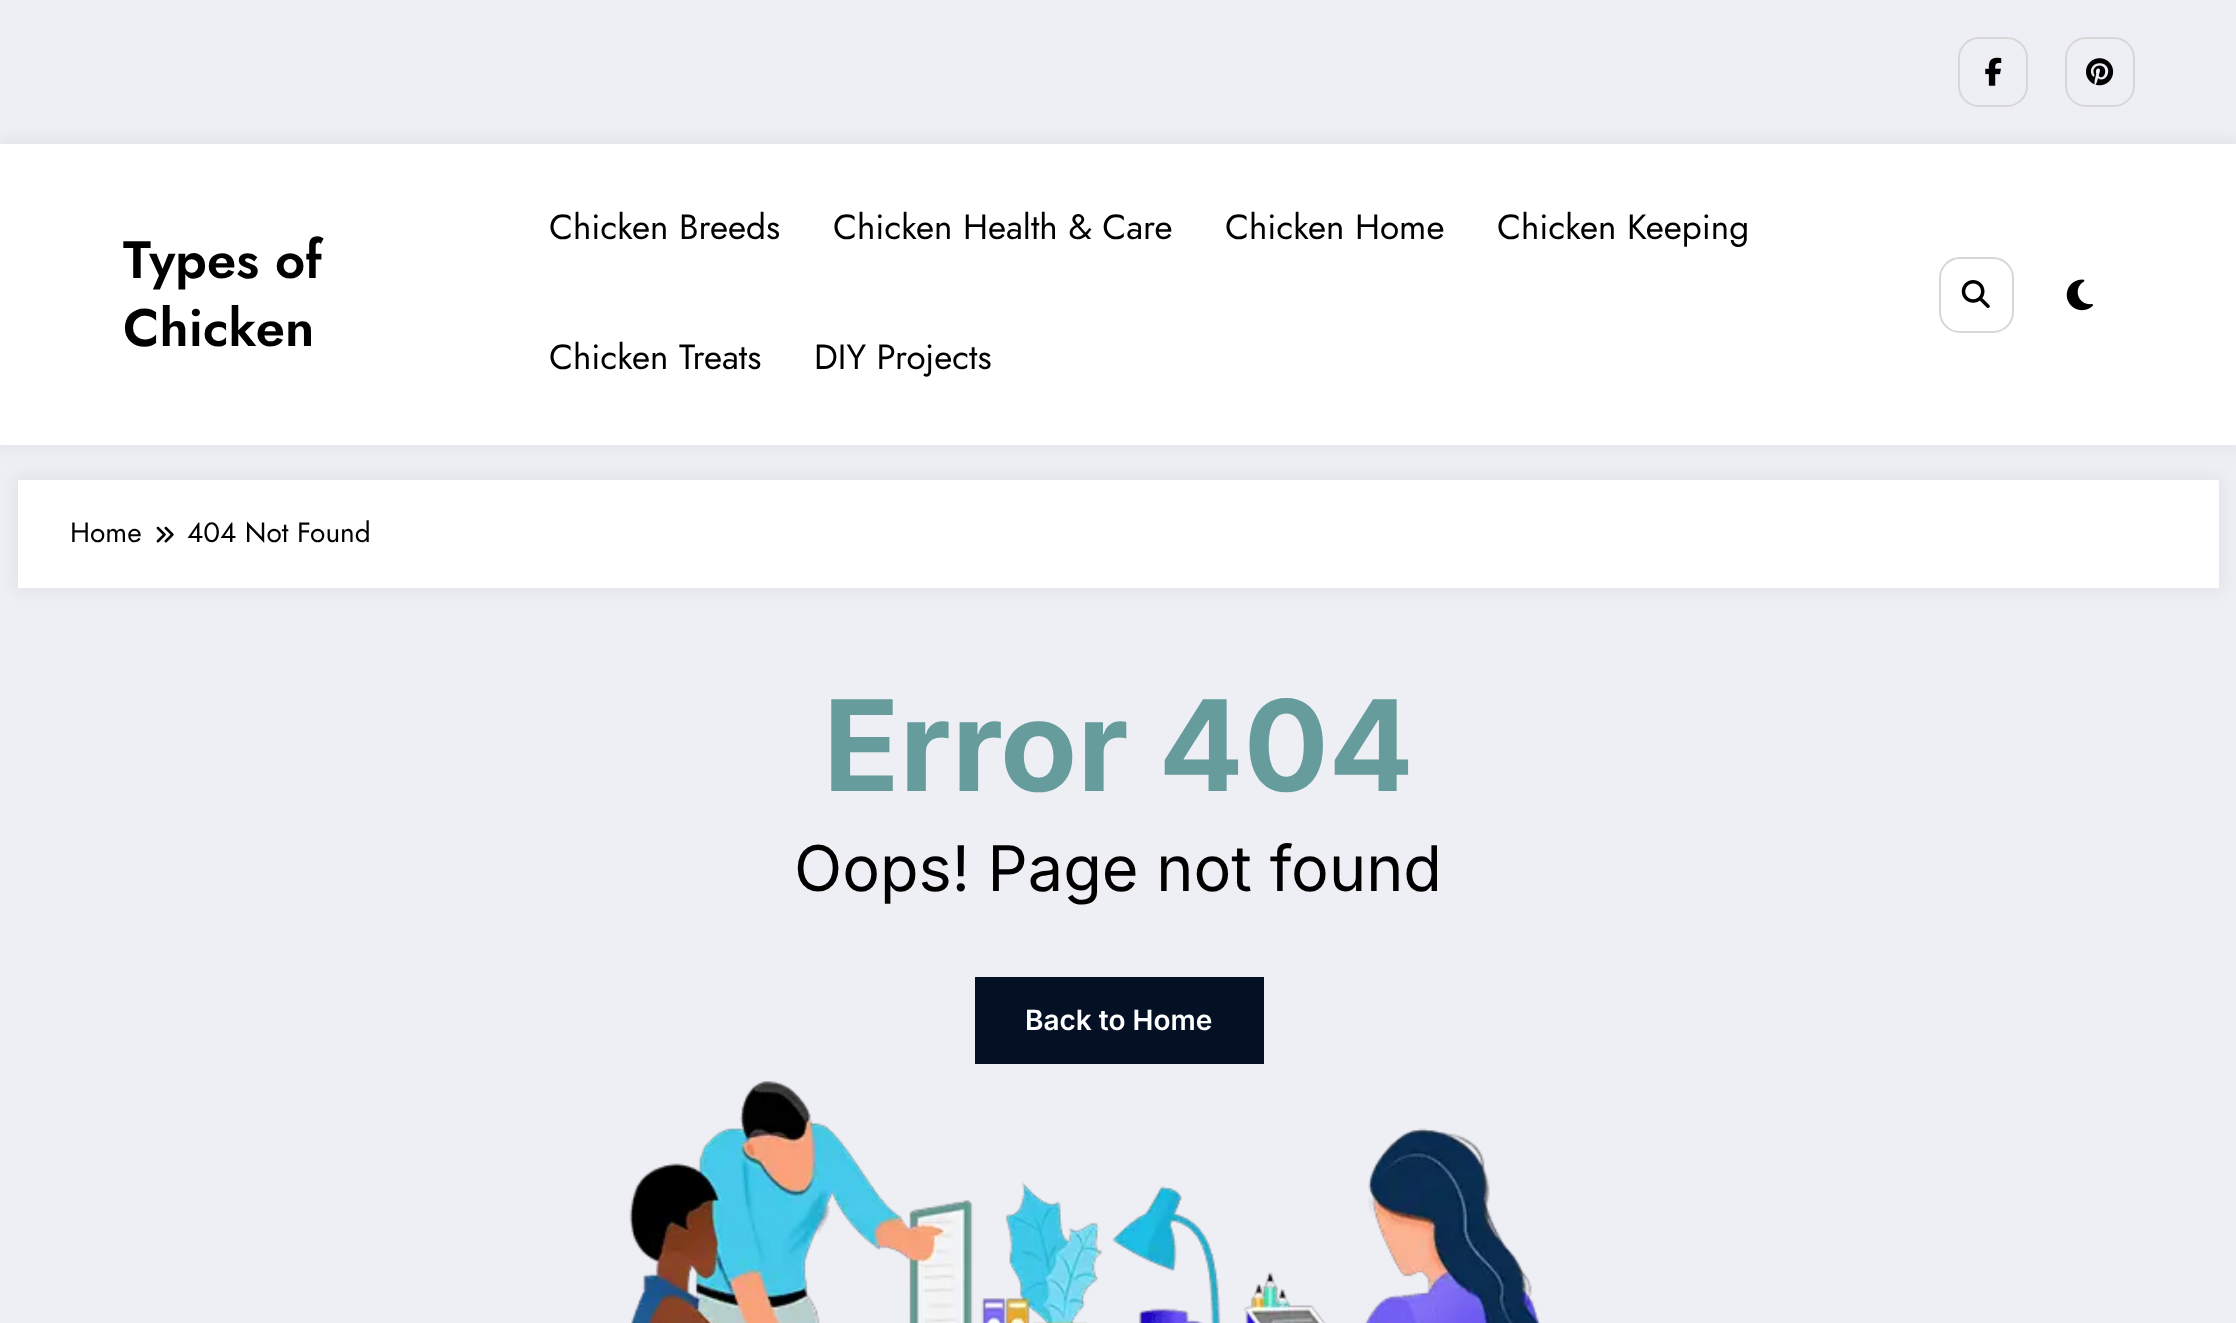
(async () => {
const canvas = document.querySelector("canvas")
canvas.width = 2236
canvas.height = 1323
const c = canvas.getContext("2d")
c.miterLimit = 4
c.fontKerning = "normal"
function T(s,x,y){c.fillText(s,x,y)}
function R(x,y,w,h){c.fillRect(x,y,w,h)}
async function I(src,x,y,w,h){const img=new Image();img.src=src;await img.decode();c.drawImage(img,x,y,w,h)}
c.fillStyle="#eeeef5"
R(0,0,2236,1323)
c.beginPath()
c.roundRect(1959,38,68,68,20)
c.strokeStyle="#d7d7d7"
c.lineWidth=2
c.stroke()
await I("1.png",1985,57,17,29)
c.beginPath()
c.roundRect(2066,38,68,68,20)
c.stroke()
await I("2.png",2086,58,28,28)
c.fillStyle="#1717230d"
c.filter="blur(7px)"
c.beginPath()
c.rect(-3,140,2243,308)
c.fill()
c.filter="none"
c.fillStyle="#fff"
R(0,144,2236,301)
c.font="600 52.5px Jost"
c.fillStyle="#000"
T("Types of",123,278)
T("Chicken",123,346)
c.font="35px Jost"
T("Chicken Breeds",549,239)
T("Chicken Health & Care",833,239)
T("Chicken Home",1225,239)
T("Chicken Keeping",1497,239)
T("Chicken Treats",549,369)
T("DIY Projects",814,369)
c.beginPath()
c.roundRect(1940,258,73,74,20)
c.stroke()
await I("3.png",1961,280,29,28)
await I("4.png",2066,279,27,32)
c.fillStyle="#1717230d"
c.filter="blur(7px)"
c.beginPath()
c.rect(14,476,2209,116)
c.fill()
c.filter="none"
c.fillStyle="#fff"
R(18,480,2201,108)
c.font="28px Jost"
c.fillStyle="#000"
T("Home",70,542)
await I("5.png",156,526,18,17)
T("404 Not Found",187,542)
c.font="bold 126px Inter"
c.fillStyle="#669c9b"
T("Error 404",823,791)
c.font="63px Inter"
c.fillStyle="#000"
T("Oops! Page not found",794,891)
c.fillStyle="#041124"
R(975,977,289,87)
c.font="600 28px Inter"
c.fillStyle="#fff"
T("Back to Home",1025,1030)
await I("6.png",629,1081,911,242)
})()
